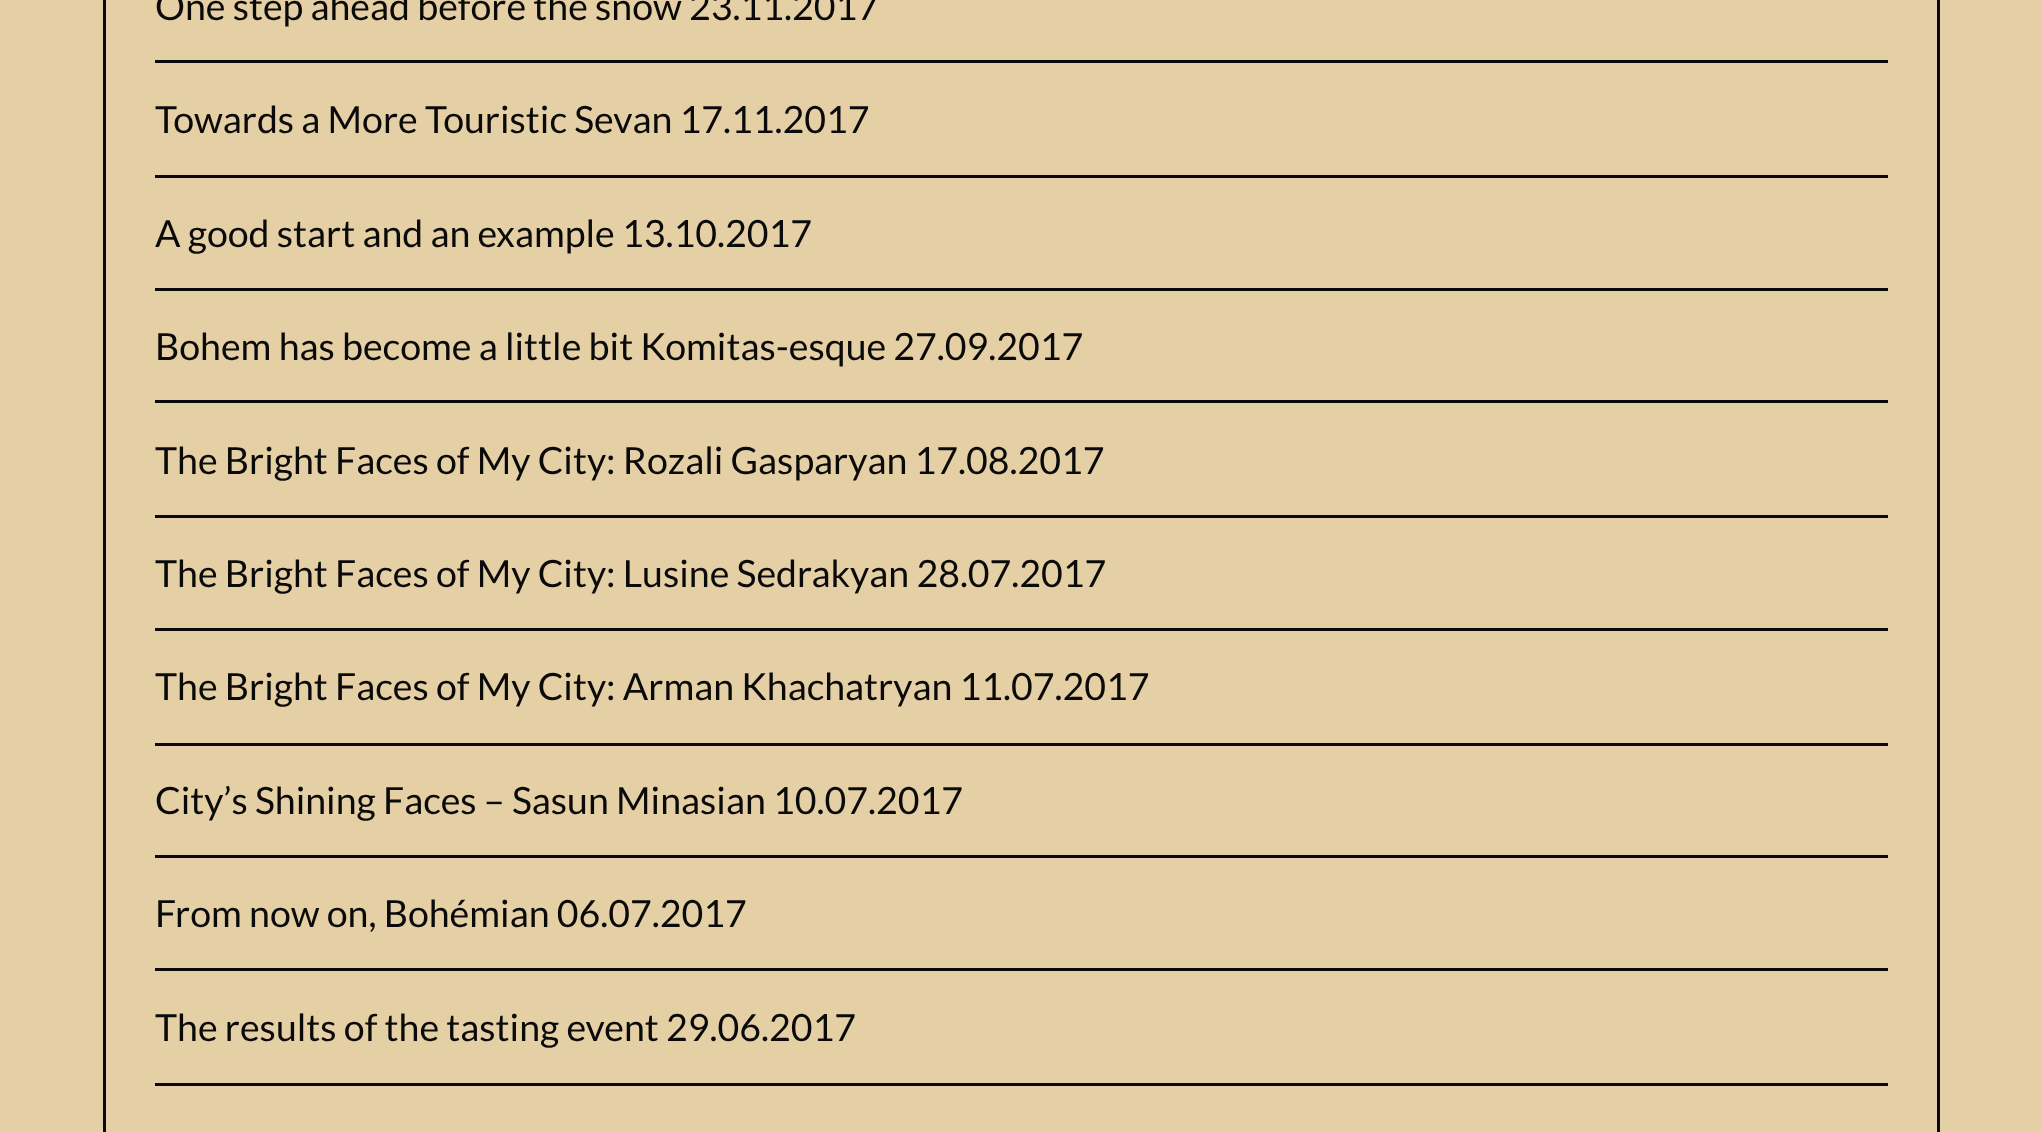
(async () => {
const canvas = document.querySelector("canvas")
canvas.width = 2041
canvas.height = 1132
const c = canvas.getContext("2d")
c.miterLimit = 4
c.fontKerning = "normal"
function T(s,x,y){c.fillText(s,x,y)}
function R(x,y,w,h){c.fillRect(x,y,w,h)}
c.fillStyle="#e5d0a5"
R(0,0,2041,1132)
c.strokeStyle="#0a0a0a"
c.lineWidth=3
c.strokeRect(104.5,-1.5,1834,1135)
c.fillStyle="#0a0a0a"
R(155,60,1733,3)
c.font="37.5px Lato"
T("One step ahead before the snow 23.11.2017",155,20)
R(155,175,1733,3)
T("Towards a More Touristic Sevan 17.11.2017",155,133)
R(155,288,1733,3)
T("A good start and an example 13.10.2017",155,247)
R(155,400,1733,3)
T("Bohem has become a little bit Komitas-esque 27.09.2017",155,360)
R(155,515,1733,3)
T("The Bright Faces of My City: Rozali Gasparyan 17.08.2017",155,474)
R(155,628,1733,3)
T("The Bright Faces of My City: Lusine Sedrakyan 28.07.2017",155,587)
R(155,743,1733,3)
T("The Bright Faces of My City: Arman Khachatryan 11.07.2017",155,700)
R(155,855,1733,3)
T("City’s Shining Faces – Sasun Minasian 10.07.2017",155,814)
R(155,968,1733,3)
T("From now on, Bohémian 06.07.2017",155,927)
R(155,1083,1733,3)
T("The results of the tasting event 29.06.2017",155,1041)
})()
